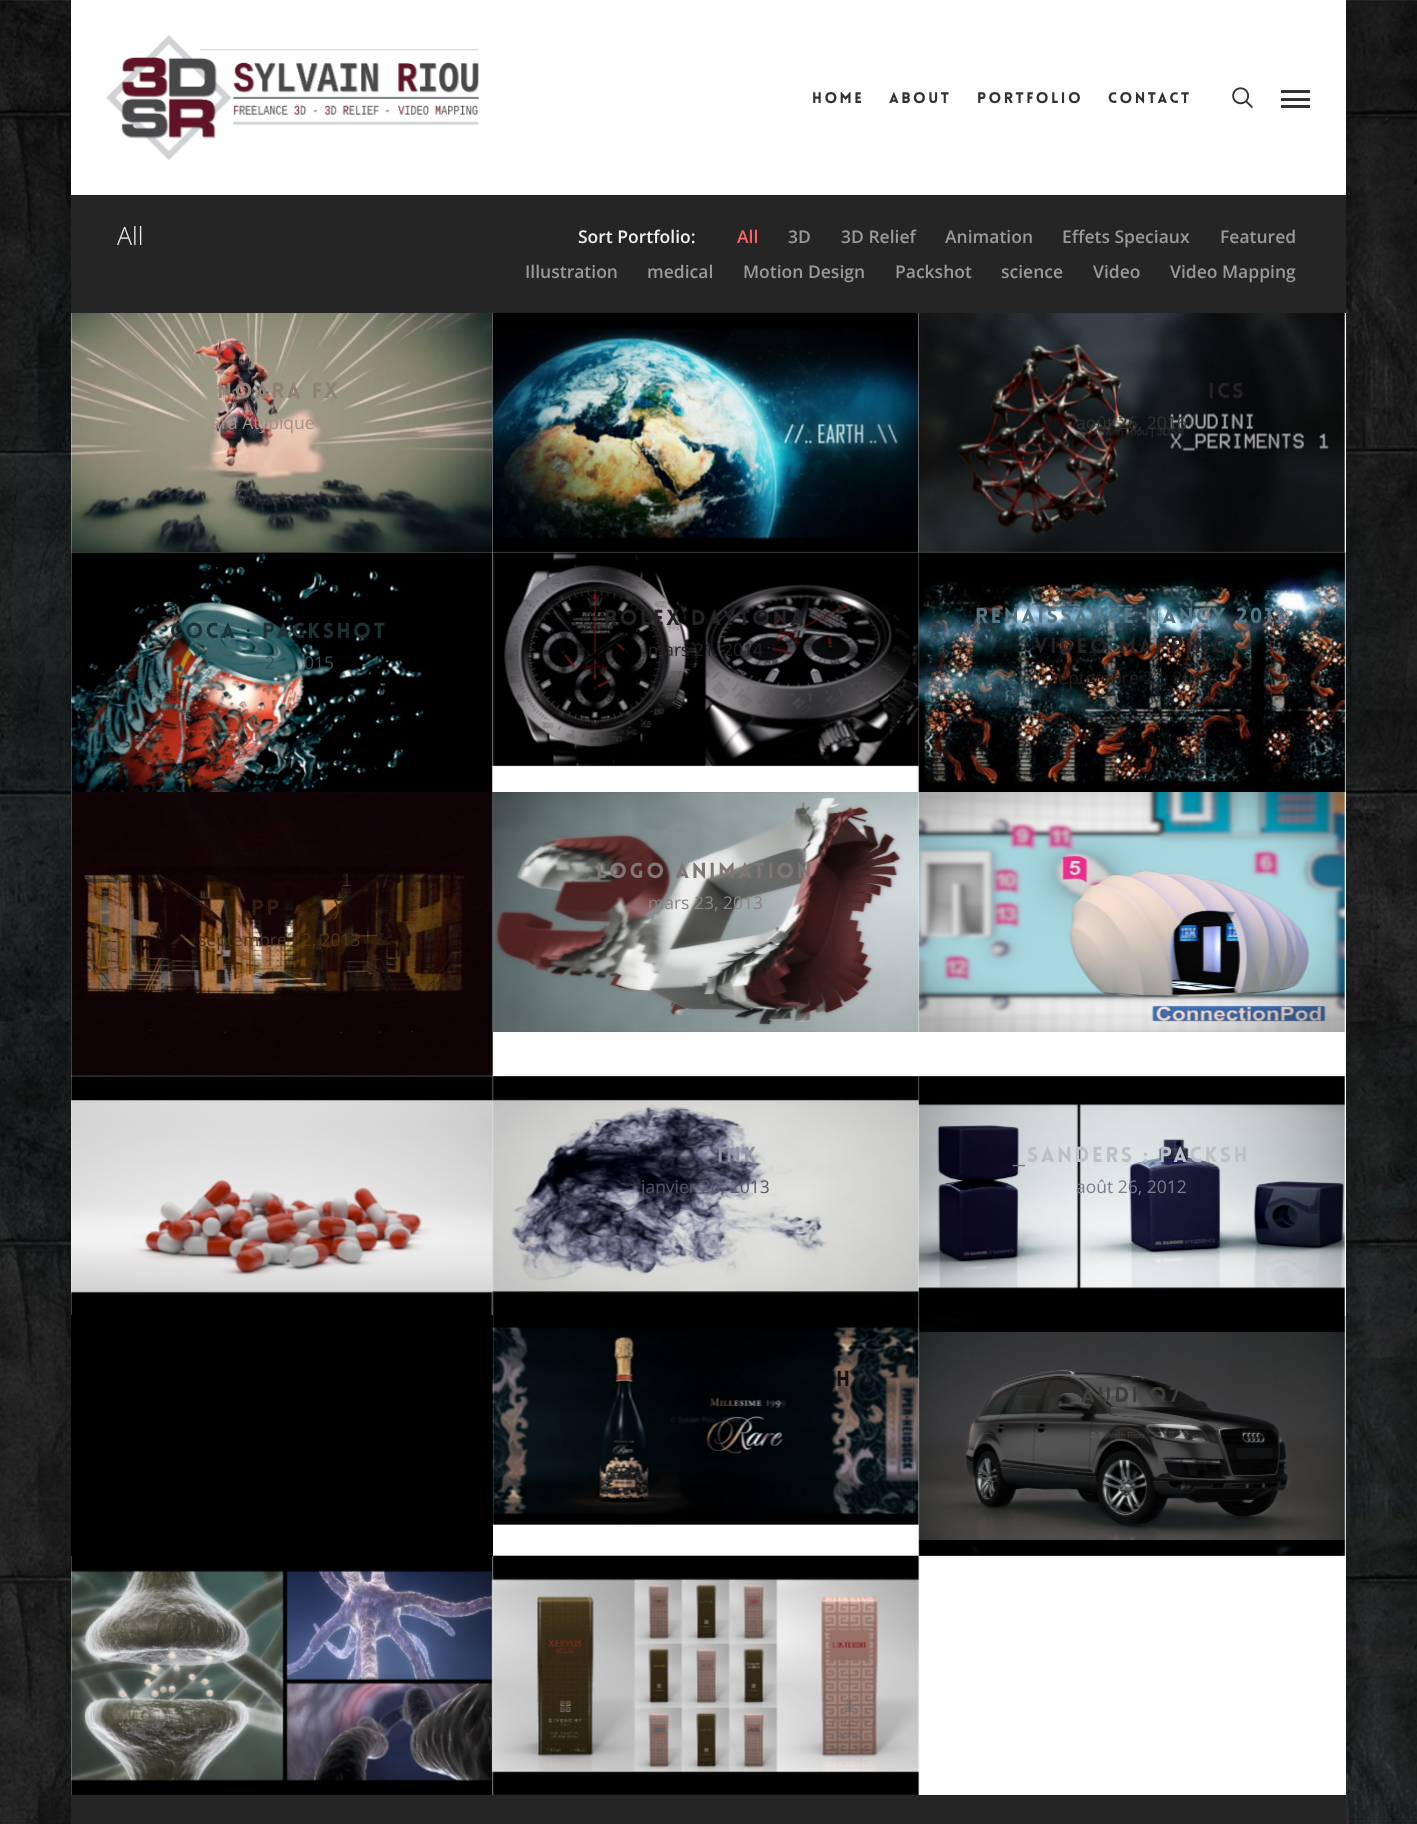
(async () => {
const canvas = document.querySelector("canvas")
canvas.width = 1417
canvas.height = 1824
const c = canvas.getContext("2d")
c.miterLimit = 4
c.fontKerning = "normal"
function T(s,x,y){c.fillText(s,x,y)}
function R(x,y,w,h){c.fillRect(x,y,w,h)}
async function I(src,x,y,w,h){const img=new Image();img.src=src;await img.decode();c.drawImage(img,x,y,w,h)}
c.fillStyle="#fff"
R(0,0,1417,1824)
await I("1.png",0,0,1417,1824)
c.fillStyle="#00000026"
c.filter="blur(9.5px)"
c.beginPath()
c.rect(71,0,1275,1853)
c.fill()
c.filter="none"
c.fillStyle="#fff"
R(71,0,1275,195)
await I("2.png",106,35,373,125)
c.letterSpacing="2.5px"
c.font="900 15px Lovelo"
c.fillStyle="#303233"
T("Home",812,103)
T("About",889,103)
T("Portfolio",977,103)
T("Contact",1108,103)
await I("3.png",1232,87,21,21)
c.fillStyle="#333"
R(1281,90,29,3)
R(1281,105,29,3)
R(1281,98,29,3)
c.fillStyle="#fff"
R(71,313,1275,1482)
c.fillStyle="#252525"
R(71,195,1275,118)
c.letterSpacing="0px"
c.font="300 25px Open Sans"
c.fillStyle="#eee"
T("All",117,245)
c.font="600 17.5px Open Sans"
T("Sort Portfolio:",578,243)
c.fillStyle="#f96566"
T("All",737,243)
c.fillStyle="#999"
T("3D",788,243)
T("3D Relief",841,243)
T("Animation",945,243)
T("Effets Speciaux",1062,243)
T("Featured",1220,243)
T("Illustration",525,278)
T("medical",647,278)
T("Motion Design",743,278)
T("Packshot",895,278)
T("science",1001,278)
T("Video",1093,278)
T("Video Mapping",1170,278)
await I("4.png",71,313,422,240)
c.letterSpacing="2.5px"
c.font="900 21.25px Lovelo"
c.fillStyle="#8e8075"
T("NOARA FX",217,398)
c.letterSpacing="0px"
c.font="17.5px Open Sans"
c.fillStyle="#a29184"
T("ara Atypique",211,429)
await I("7.png",71,552,422,241)
await I("5.png",491,313,428,240)
await I("8.png",492,552,428,215)
await I("6.png",918,313,427,240)
c.letterSpacing="2.5px"
c.font="900 21.25px Lovelo"
c.fillStyle="#242224"
T("ics",1208,398)
c.letterSpacing="0px"
c.font="17.5px Open Sans"
c.fillStyle="#303233"
T("août 26, 2016",1076,429)
c.letterSpacing="2.5px"
c.font="900 21.25px Lovelo"
c.fillStyle="#1e3235"
T("Coca : Packshot",170,638)
c.letterSpacing="0px"
c.font="17.5px Open Sans"
c.fillStyle="#315256"
T("2",265,669)
T("015",304,669)
c.letterSpacing="2.5px"
c.font="900 21.25px Lovelo"
c.fillStyle="#242224"
T("Rolex Daytona",604,625)
c.letterSpacing="0px"
c.font="17.5px Open Sans"
T("mars 21, 2014",648,656)
await I("12.png",71,792,423,285)
await I("10.png",492,792,427,240)
await I("9.png",917,552,429,241)
c.letterSpacing="2.5px"
c.font="900 21.25px Lovelo"
c.fillStyle="#587584"
T("Renaissance Nancy 2013",975,623)
c.fillStyle="#242224"
T("Video Mapping",1034,653)
c.letterSpacing="0px"
c.font="17.5px Open Sans"
c.fillStyle="#241e1c"
T("septembre 22, 2013",1050,684)
c.letterSpacing="2.5px"
c.font="900 21.25px Lovelo"
c.fillStyle="#817676"
T("Logo Animation",596,878)
c.letterSpacing="0px"
c.font="17.5px Open Sans"
c.fillStyle="#878585"
T("mars 23, 2013",648,909)
await I("11.png",918,792,427,240)
c.letterSpacing="2.5px"
c.font="900 21.25px Lovelo"
c.fillStyle="#311c10"
T("pp",251,915)
c.font="21.25px Liberation Sans"
c.fillStyle="#502f17"
T(")",333,915)
c.letterSpacing="0px"
c.font="17.5px Open Sans"
c.fillStyle="#51341d"
T("septembre 22, 2013",198,946)
await I("13.png",71,1076,423,239)
c.fillStyle="#000"
R(71,1315,422,241)
await I("14.png",491,1076,429,241)
c.letterSpacing="2.5px"
c.font="900 21.25px Lovelo"
c.fillStyle="#9193a2"
T("INK",717,1162)
c.letterSpacing="0px"
c.font="17.5px Open Sans"
c.fillStyle="#565968"
T("janvier 26, 2013",641,1193)
await I("16.png",491,1316,429,209)
await I("15.png",918,1076,427,241)
c.letterSpacing="2.5px"
c.font="900 21.25px Lovelo"
c.fillStyle="#bac0c5"
T("Sanders : Packsh",1027,1162)
c.font="21.25px Liberation Sans"
c.fillStyle="#777985"
T("_",1013,1162)
c.letterSpacing="0px"
c.font="17.5px Open Sans"
c.fillStyle="#7b7c8c"
T("août 26, 2012",1076,1193)
c.letterSpacing="2.5px"
c.font="900 21.25px Lovelo"
c.fillStyle="#0f1112"
T("h",836,1386)
await I("18.png",71,1556,422,239)
await I("19.png",491,1555,429,240)
await I("17.png",918,1316,428,240)
c.fillStyle="#3c3c3b"
T("Audi Q7",1081,1402)
c.fillStyle="#252525"
R(71,1795,1275,29)
})()
